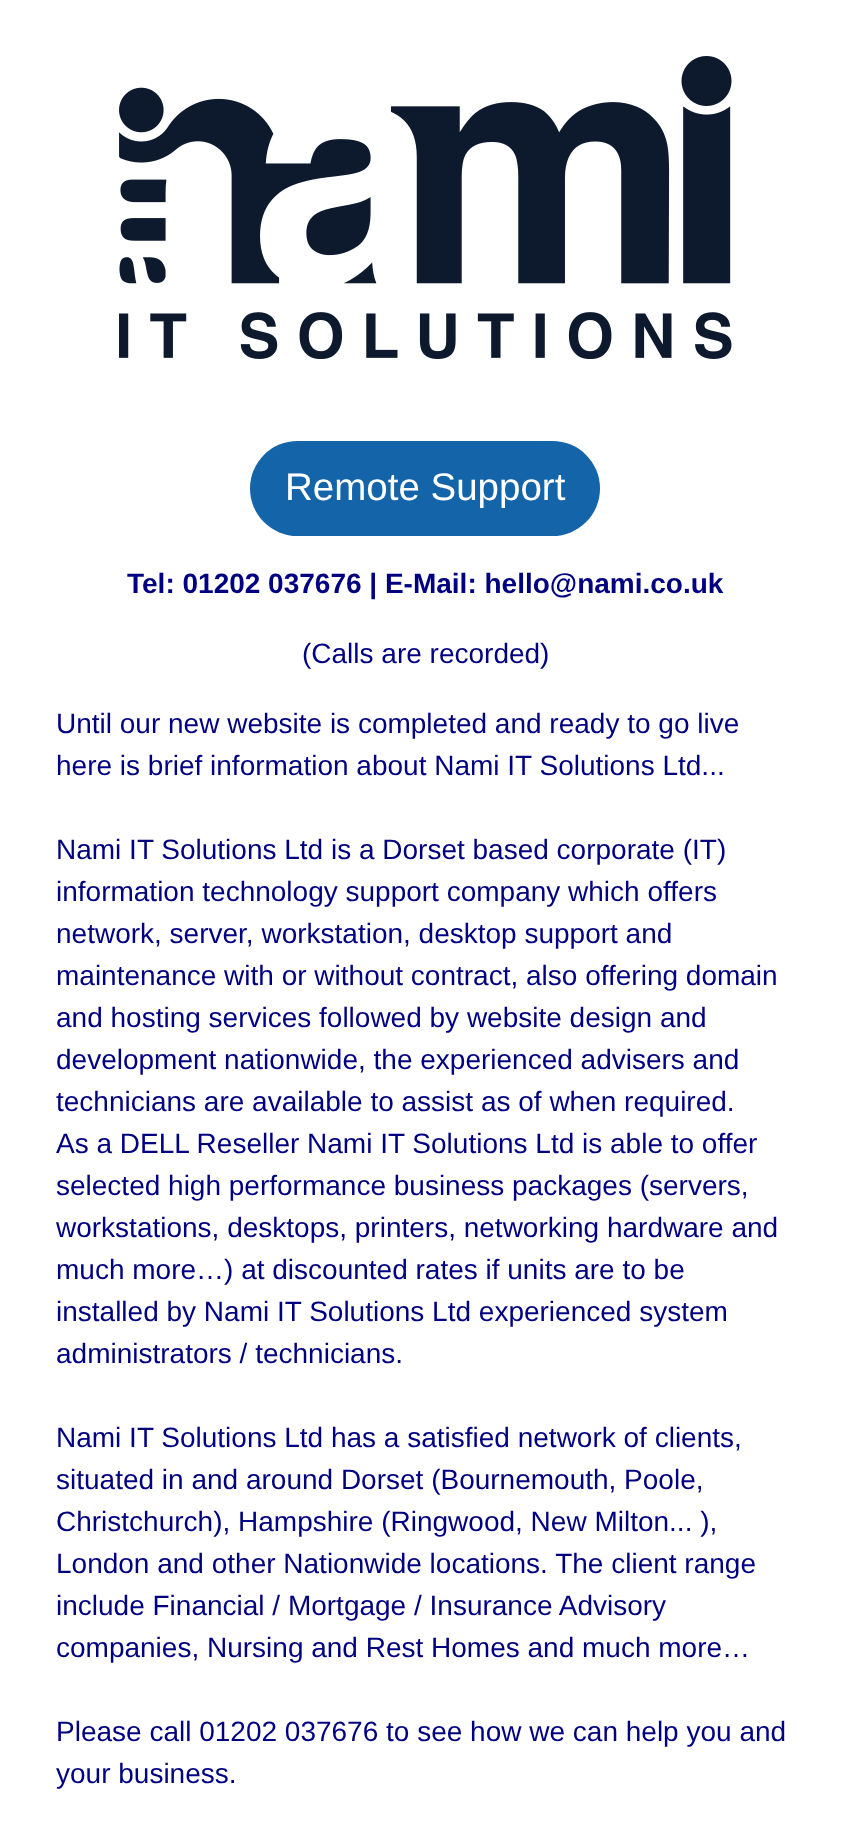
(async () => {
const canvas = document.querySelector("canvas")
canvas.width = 850
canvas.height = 1837
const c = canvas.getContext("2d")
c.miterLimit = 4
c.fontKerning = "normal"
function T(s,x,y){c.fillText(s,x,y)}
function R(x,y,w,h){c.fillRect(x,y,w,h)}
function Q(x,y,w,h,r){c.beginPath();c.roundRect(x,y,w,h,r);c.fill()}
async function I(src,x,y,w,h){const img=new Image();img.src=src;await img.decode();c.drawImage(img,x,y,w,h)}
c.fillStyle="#fff"
R(0,0,850,1837)
await I("1.png",119,56,613,303)
c.fillStyle="#1464aa"
Q(250,441,350,95,47.5)
c.font="38.5px Liberation Sans"
c.fillStyle="#fff"
T("Remote Support",285,500)
c.font="bold 28px Liberation Sans"
c.fillStyle="#000080"
T("Tel: 01202 037676 | E-Mail: hello@nami.co.uk",127,593)
c.font="28px Liberation Sans"
T("(Calls are recorded)",302,663)
T("Until our new website is completed and ready to go live",56,733)
T("here is brief information about Nami IT Solutions Ltd...",56,775)
T("Nami IT Solutions Ltd is a Dorset based corporate (IT)",56,859)
T("information technology support company which offers",56,901)
T("network, server, workstation, desktop support and",56,943)
T("maintenance with or without contract, also offering domain",56,985)
T("and hosting services followed by website design and",56,1027)
T("development nationwide, the experienced advisers and",56,1069)
T("technicians are available to assist as of when required.",56,1111)
T("As a DELL Reseller Nami IT Solutions Ltd is able to offer",56,1153)
T("selected high performance business packages (servers,",56,1195)
T("workstations, desktops, printers, networking hardware and",56,1237)
T("much more…) at discounted rates if units are to be",56,1279)
T("installed by Nami IT Solutions Ltd experienced system",56,1321)
T("administrators / technicians.",56,1363)
T("Nami IT Solutions Ltd has a satisfied network of clients,",56,1447)
T("situated in and around Dorset (Bournemouth, Poole,",56,1489)
T("Christchurch), Hampshire (Ringwood, New Milton... ),",56,1531)
T("London and other Nationwide locations. The client range",56,1573)
T("include Financial / Mortgage / Insurance Advisory",56,1615)
T("companies, Nursing and Rest Homes and much more…",56,1657)
T("Please call 01202 037676 to see how we can help you and",56,1741)
T("your business.",56,1783)
})()
